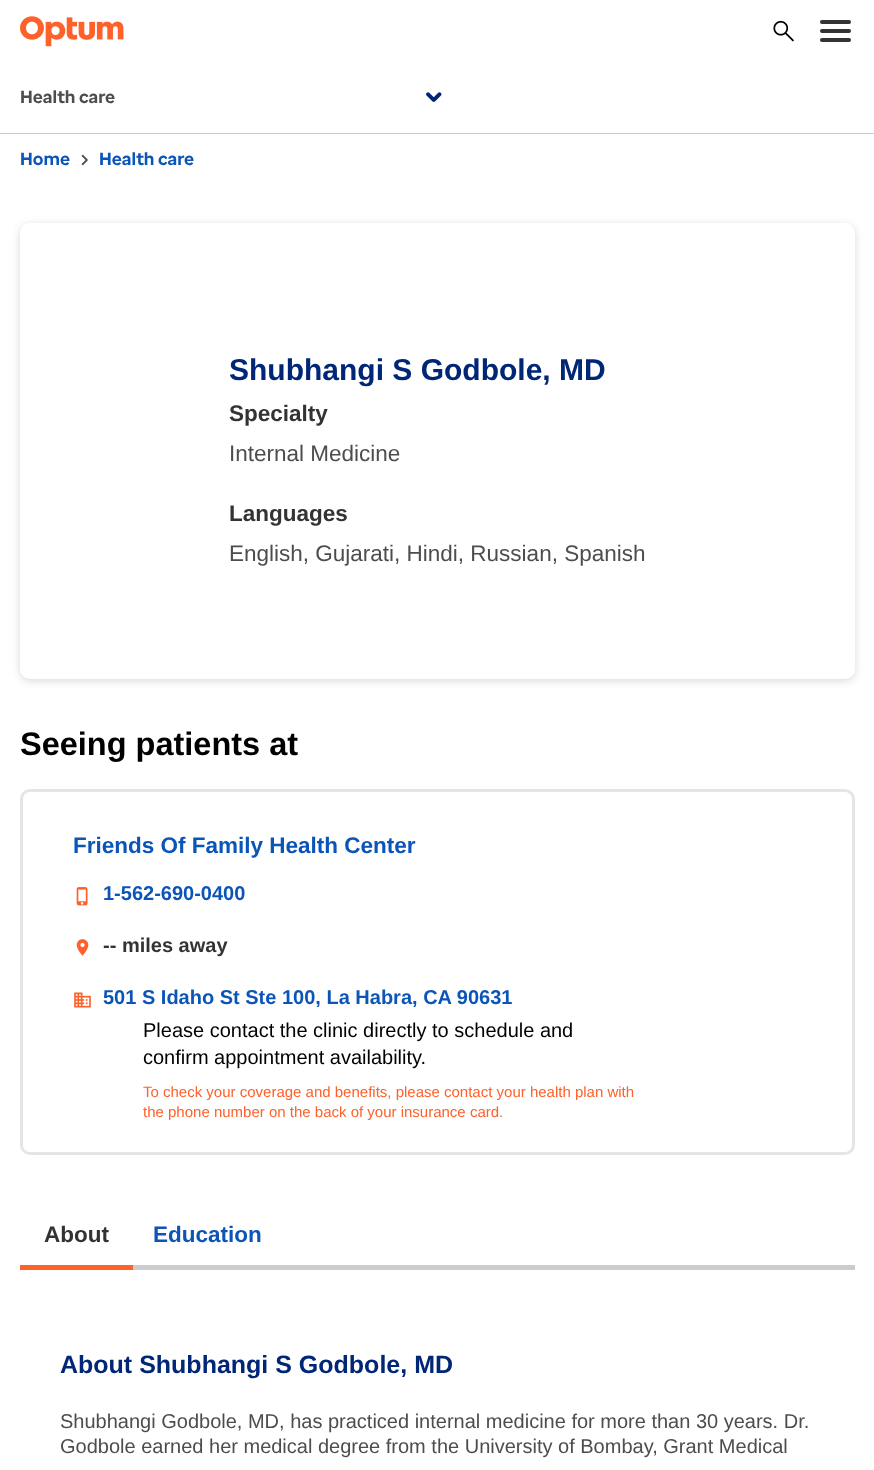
(async () => {
const canvas = document.querySelector("canvas")
canvas.width = 874
canvas.height = 1470
const c = canvas.getContext("2d")
c.miterLimit = 4
c.fontKerning = "normal"
function T(s,x,y){c.fillText(s,x,y)}
function R(x,y,w,h){c.fillRect(x,y,w,h)}
function Q(x,y,w,h,r){c.beginPath();c.roundRect(x,y,w,h,r);c.fill()}
async function I(src,x,y,w,h){const img=new Image();img.src=src;await img.decode();c.drawImage(img,x,y,w,h)}
let path
c.fillStyle="#fff"
R(0,0,874,1470)
c.save()
path = new Path2D("M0 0h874v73h-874zm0 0h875v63h-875z")
c.clip(path,"evenodd")
c.fillStyle="#19191a29"
c.filter="blur(2.5px)"
c.beginPath()
c.rect(1,4,873,60)
c.fill()
c.filter="none"
c.restore()
await I("1.png",20,16,104,31)
await I("2.png",773,20,21,22)
c.fillStyle="#323334"
Q(820,20,31,4,2)
Q(820,29,31,4,2)
Q(820,38,31,4,2)
c.fillStyle="#fff"
R(0,63,874,5)
c.fillStyle="#cbcccd"
R(0,133,874,1)
c.font="bold 17.5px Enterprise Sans"
c.fillStyle="#4b4d4f"
T("Health care",20,103)
await I("3.png",426,92,16,10)
c.fillStyle="#0c55b8"
T("Home",20,165)
await I("4.png",81,154,7,12)
T("Health care",99,165)
c.fillStyle="#19191a29"
c.filter="blur(4px)"
c.beginPath()
c.roundRect(20,225,835,456,10)
c.fill()
c.filter="none"
c.fillStyle="#fff"
Q(20,223,835,456,10)
c.font="bold 30px Liberation Sans"
c.fillStyle="#002677"
T("Shubhangi S Godbole, MD",229,380)
c.font="bold 22.5px Liberation Sans"
c.fillStyle="#323334"
T("Specialty",229,421)
c.font="22.5px Liberation Sans"
c.fillStyle="#4b4d4f"
T("Internal Medicine",229,461)
c.font="bold 22.5px Liberation Sans"
c.fillStyle="#323334"
T("Languages",229,521)
c.font="22.5px Liberation Sans"
c.fillStyle="#4b4d4f"
T("English, Gujarati, Hindi, Russian, Spanish",229,561)
c.font="bold 32.5px Liberation Sans"
c.fillStyle="#000"
T("Seeing patients at",20,755)
c.beginPath()
c.roundRect(21.5,790.5,832,363,8.5)
c.strokeStyle="#e5e5e6"
c.lineWidth=3
c.stroke()
c.font="bold 22.5px Liberation Sans"
c.fillStyle="#0c55b8"
T("Friends Of Family Health Center",73,853)
await I("5.png",76,887,12,19)
c.font="bold 20px Liberation Sans"
T("1-562-690-0400",103,900)
await I("6.png",76,939,13,17)
c.fillStyle="#323334"
T("-- miles away",103,952)
await I("7.png",74,992,17,16)
c.fillStyle="#0c55b8"
T("501 S Idaho St Ste 100, La Habra, CA 90631",103,1004)
c.font="20px Liberation Sans"
c.fillStyle="#000"
T("Please contact the clinic directly to schedule and",143,1037)
T("confirm appointment availability.",143,1064)
c.font="15px Liberation Sans"
c.fillStyle="#fe612a"
T("To check your coverage and benefits, please contact your health plan with",143,1097)
T("the phone number on the back of your insurance card.",143,1117)
c.fillStyle="#cbcccd"
R(133,1265,722,5)
c.font="bold 22.5px Liberation Sans"
c.fillStyle="#323334"
T("About",44,1242)
c.fillStyle="#0c55b8"
T("Education",153,1242)
c.fillStyle="#fe612a"
R(20,1265,113,5)
c.font="bold 25px Liberation Sans"
c.fillStyle="#002677"
T("About Shubhangi S Godbole, MD",60,1373)
c.font="20px Liberation Sans"
c.fillStyle="#4b4d4f"
T("Shubhangi Godbole, MD, has practiced internal medicine for more than 30 years. Dr.",60,1428)
T("Godbole earned her medical degree from the University of Bombay, Grant Medical",60,1453)
})()
